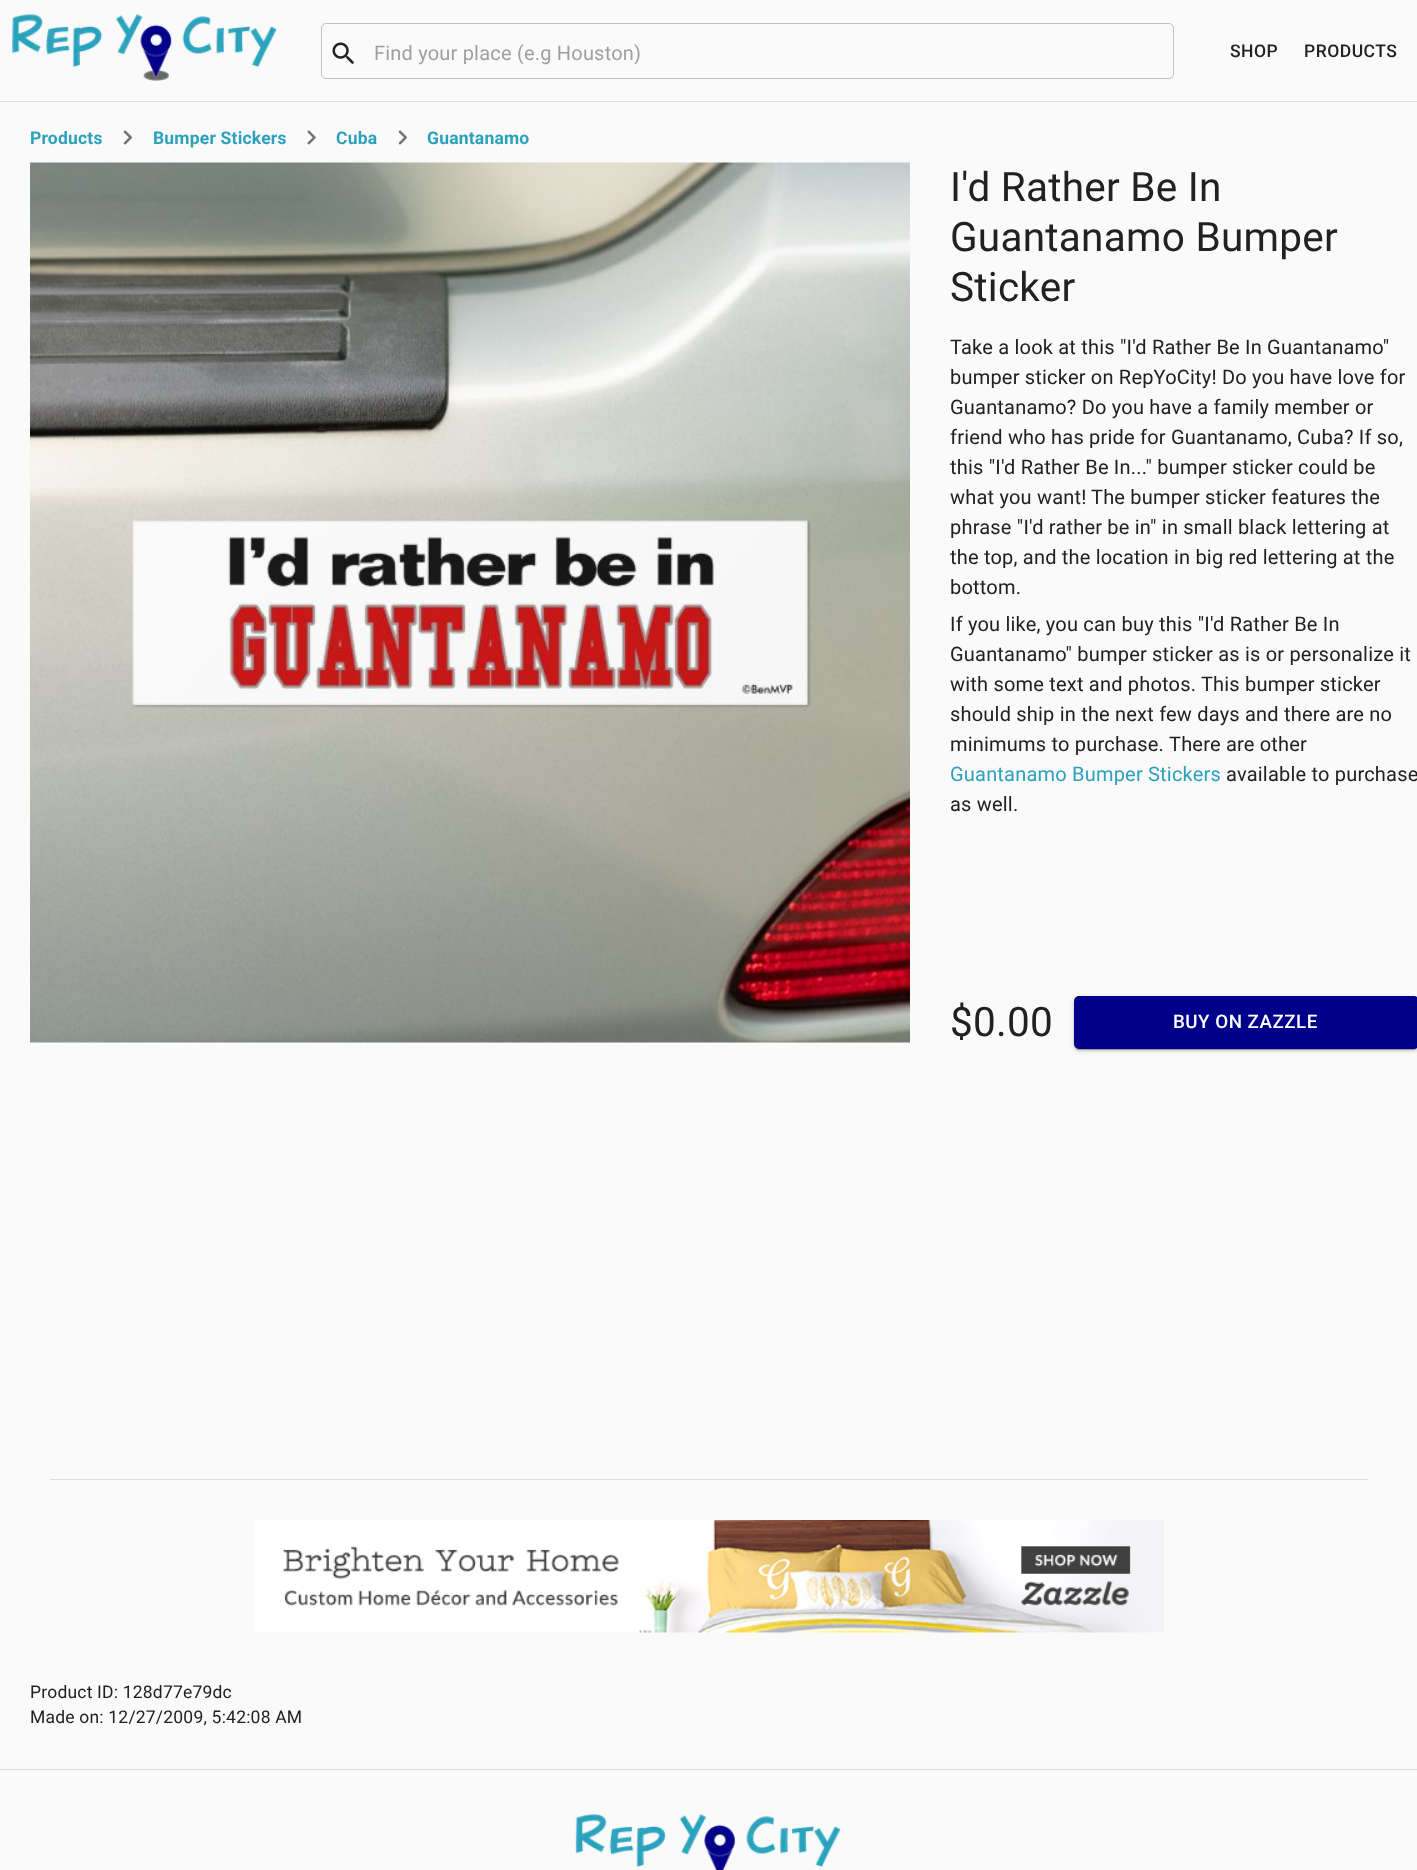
(async () => {
const canvas = document.querySelector("canvas")
canvas.width = 1417
canvas.height = 1870
const c = canvas.getContext("2d")
c.miterLimit = 4
c.fontKerning = "normal"
function T(s,x,y){c.fillText(s,x,y)}
function R(x,y,w,h){c.fillRect(x,y,w,h)}
function Q(x,y,w,h,r){c.beginPath();c.roundRect(x,y,w,h,r);c.fill()}
async function I(src,x,y,w,h){const img=new Image();img.src=src;await img.decode();c.drawImage(img,x,y,w,h)}
c.fillStyle="#fafafa"
R(0,0,1417,1870)
c.fillStyle="#dcdcdc"
R(0,101,1417,1)
await I("1.png",12,14,265,67)
await I("2.png",332,42,22,22)
c.beginPath()
c.roundRect(321.5,23.5,852,55,4.5)
c.strokeStyle="#c1c1c1"
c.stroke()
c.letterSpacing="0.2px"
c.font="20px Roboto"
c.fillStyle="#9f9f9f"
T("Find your place (e.g Houston)",374,60)
c.letterSpacing="0.5px"
c.font="500 17.5px Roboto"
c.fillStyle="#212121"
T("SHOP",1230,57)
T("PRODUCTS",1304,57)
c.letterSpacing="0.2px"
c.font="bold 17.5px Roboto"
c.fillStyle="#2ba1bc"
T("Products",30,144)
await I("3.png",123,130,9,15)
T("Bumper Stickers",153,144)
await I("4.png",307,130,9,15)
T("Cuba",336,144)
await I("3.png",398,130,9,15)
T("Guantanamo",427,144)
await I("5.png",30,162,880,881)
c.letterSpacing="0.25px"
c.font="40.5px Roboto"
c.fillStyle="#212121"
T("I'd Rather Be In",950,201)
T("Guantanamo Bumper",950,251)
T("Sticker",950,301)
c.letterSpacing="0.2px"
c.font="20px Roboto"
T("Take a look at this \"I'd Rather Be In Guantanamo\"",950,354)
T("bumper sticker on RepYoCity! Do you have love for",950,384)
T("Guantanamo? Do you have a family member or",950,414)
T("friend who has pride for Guantanamo, Cuba? If so,",950,444)
T("this \"I'd Rather Be In...\" bumper sticker could be",950,474)
T("what you want!",950,504)
T("The bumper sticker features the",1091,504)
T("phrase \"I'd rather be in\" in small black lettering at",950,534)
T("the top, and the location in big red lettering at the",950,564)
T("bottom.",950,594)
T("If you like, you can buy this \"I'd Rather Be In",950,631)
T("Guantanamo\" bumper sticker as is or personalize it",950,661)
T("with some text and photos. This bumper sticker",950,691)
T("should ship in the next few days and there are no",950,721)
T("minimums to purchase.",950,751)
T("There are other",1169,751)
c.fillStyle="#2ba1bc"
T("Guantanamo Bumper Stickers",950,781)
c.fillStyle="#212121"
T("available to purchase",1226,781)
T("as well.",950,811)
c.letterSpacing="0.25px"
c.font="40.5px Roboto"
T("$0.00",950,1036)
c.fillStyle="#0000001f"
c.filter="blur(3px)"
c.beginPath()
c.roundRect(1074,998,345,52,5)
c.fill()
c.filter="none"
c.fillStyle="#00000024"
c.filter="blur(1px)"
c.beginPath()
c.roundRect(1074,999,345,52,5)
c.fill()
c.filter="none"
c.fillStyle="#00000033"
c.filter="blur(0.5px)"
c.beginPath()
c.roundRect(1076,1003,340,47,2.5)
c.fill()
c.filter="none"
c.fillStyle="#00008b"
Q(1074,996,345,53,5)
c.letterSpacing="0.5px"
c.font="500 18.75px Roboto"
c.fillStyle="#fff"
T("BUY ON ZAZZLE",1173,1028)
c.fillStyle="#dcdcdc"
R(50,1479,1318,1)
await I("6.png",254,1520,910,113)
c.letterSpacing="0.2px"
c.font="17.5px Roboto"
c.fillStyle="#212121"
T("Product ID: 128d77e79dc",30,1698)
T("Made on: 12/27/2009, 5:42:08 AM",30,1723)
c.fillStyle="#dcdcdc"
R(0,1769,1417,1)
await I("7.png",575,1814,266,56)
})()
